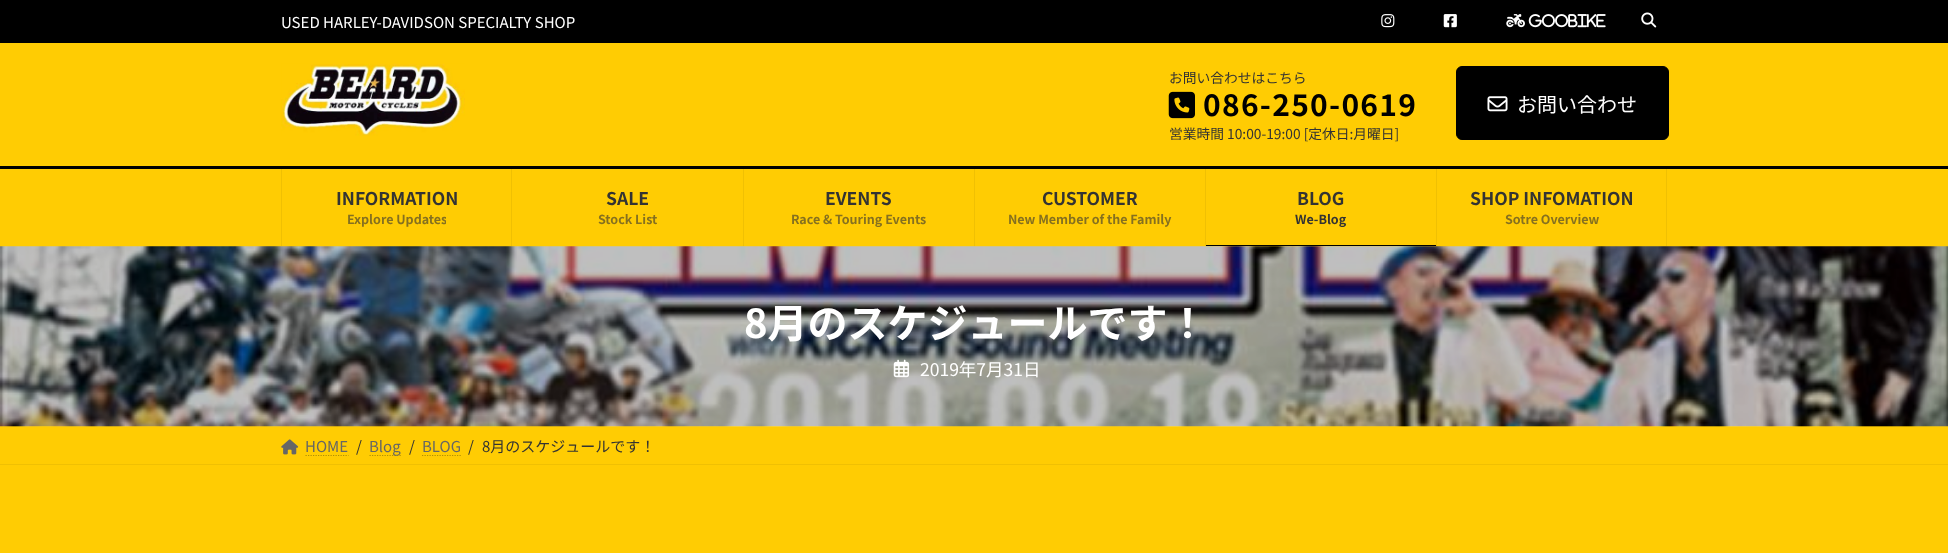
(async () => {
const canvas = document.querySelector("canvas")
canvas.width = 1948
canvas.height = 553
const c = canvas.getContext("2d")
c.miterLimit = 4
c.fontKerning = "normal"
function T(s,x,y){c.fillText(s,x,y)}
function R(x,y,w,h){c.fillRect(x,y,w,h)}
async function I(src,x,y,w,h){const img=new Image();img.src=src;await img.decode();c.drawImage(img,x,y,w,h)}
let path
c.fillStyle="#ffcc03"
R(0,0,1948,553)
c.fillStyle="#000"
R(0,0,1948,43)
c.font="15px Noto Sans JP"
c.fillStyle="#fff"
T("USED HARLEY-DAVIDSON SPECIALTY SHOP",281,28)
await I("1.png",1381,14,14,14)
await I("2.png",1443,14,14,14)
await I("3.png",1506,14,19,14)
await I("4.png",1528,14,78,14)
await I("5.png",1641,12,16,16)
await I("6.png",281,63,184,73)
c.font="13.75px Noto Sans JP"
c.fillStyle="#333"
T("お問い合わせはこちら",1169,83)
await I("7.png",1168,91,27,28)
c.letterSpacing="1.25px"
c.font="bold 30px Noto Sans JP"
c.fillStyle="#000"
T("086-250-0619",1203,116)
c.letterSpacing="0px"
c.font="13.75px Noto Sans JP"
c.fillStyle="#333"
T("営業時間 10:00-19:00 [定休日:月曜日]",1169,139)
c.fillStyle="#000"
c.beginPath()
c.roundRect(1456.5,66.5,212,73,5.5)
c.fill()
c.strokeStyle="#000"
c.stroke()
await I("8.png",1487,96,21,16)
c.font="20px Noto Sans JP"
c.fillStyle="#fff"
T("お問い合わせ",1517,112)
c.fillStyle="#000"
R(0,166,1948,3)
c.fillStyle="#f0c003"
R(511,169,1,77)
R(281,169,1,77)
c.font="bold 17.5px Noto Sans JP"
c.fillStyle="#333"
T("INFORMATION",336,205)
c.save()
c.beginPath()
c.rect(346,211,100,18)
c.clip()
c.font="bold 12.5px Noto Sans JP"
c.fillStyle="#857020"
T("Explore Updates",347,224)
c.restore()
c.fillStyle="#f0c003"
R(743,169,1,77)
c.fillStyle="#333"
T("SALE",606,205)
c.font="bold 12.5px Noto Sans JP"
c.fillStyle="#857020"
T("Stock List",598,224)
c.fillStyle="#f0c003"
R(974,169,1,77)
c.font="bold 17.5px Noto Sans JP"
c.fillStyle="#333"
T("EVENTS",825,205)
c.font="bold 12.5px Noto Sans JP"
c.fillStyle="#857020"
T("Race & Touring Events",791,224)
c.fillStyle="#f0c003"
R(1205,169,1,77)
c.font="bold 17.5px Noto Sans JP"
c.fillStyle="#333"
T("CUSTOMER",1042,205)
c.font="bold 12.5px Noto Sans JP"
c.fillStyle="#857020"
T("New Member of the Family",1008,224)
c.fillStyle="#f0c003"
R(1436,169,1,77)
c.font="bold 17.5px Noto Sans JP"
c.fillStyle="#333"
T("BLOG",1297,205)
c.font="bold 12.5px Noto Sans JP"
T("We-Blog",1295,224)
c.fillStyle="#000"
R(1206,245,230,1)
c.fillStyle="#f0c003"
R(1666,169,1,77)
c.font="bold 17.5px Noto Sans JP"
c.fillStyle="#333"
T("SHOP INFOMATION",1470,205)
c.font="bold 12.5px Noto Sans JP"
c.fillStyle="#857020"
T("Sotre Overview",1505,224)
c.fillStyle="#f0c003"
R(0,426,1948,1)
await I("9.png",0,246,1948,181)
c.font="bold 40px Noto Sans JP"
c.fillStyle="#fff"
T("8月のスケジュールです！",744,338)
await I("10.png",893,359,17,19)
c.font="17.5px Noto Sans JP"
T("2019年7月31日",920,376)
c.fillStyle="#f0c003"
R(0,464,1948,1)
await I("11.png",281,439,18,16)
c.font="15px Noto Sans JP"
c.fillStyle="#666"
T("HOME",305,452)
path = new Path2D("M305.5 455.5h43")
c.strokeStyle="#b38f02"
c.lineWidth=1.2
c.setLineDash([1.25,1.25])
c.stroke(path)
c.fillStyle="#333"
T("/",356,452)
path = new Path2D("M369.5 455.5h31.5")
c.stroke(path)
c.fillStyle="#666"
T("Blog",369,452)
c.fillStyle="#333"
T("/",409,452)
c.fillStyle="#666"
T("BLOG",422,452)
path = new Path2D("M422 455.5h39")
c.stroke(path)
c.fillStyle="#333"
T("/",468,452)
T("8月のスケジュールです！",482,452)
})()
